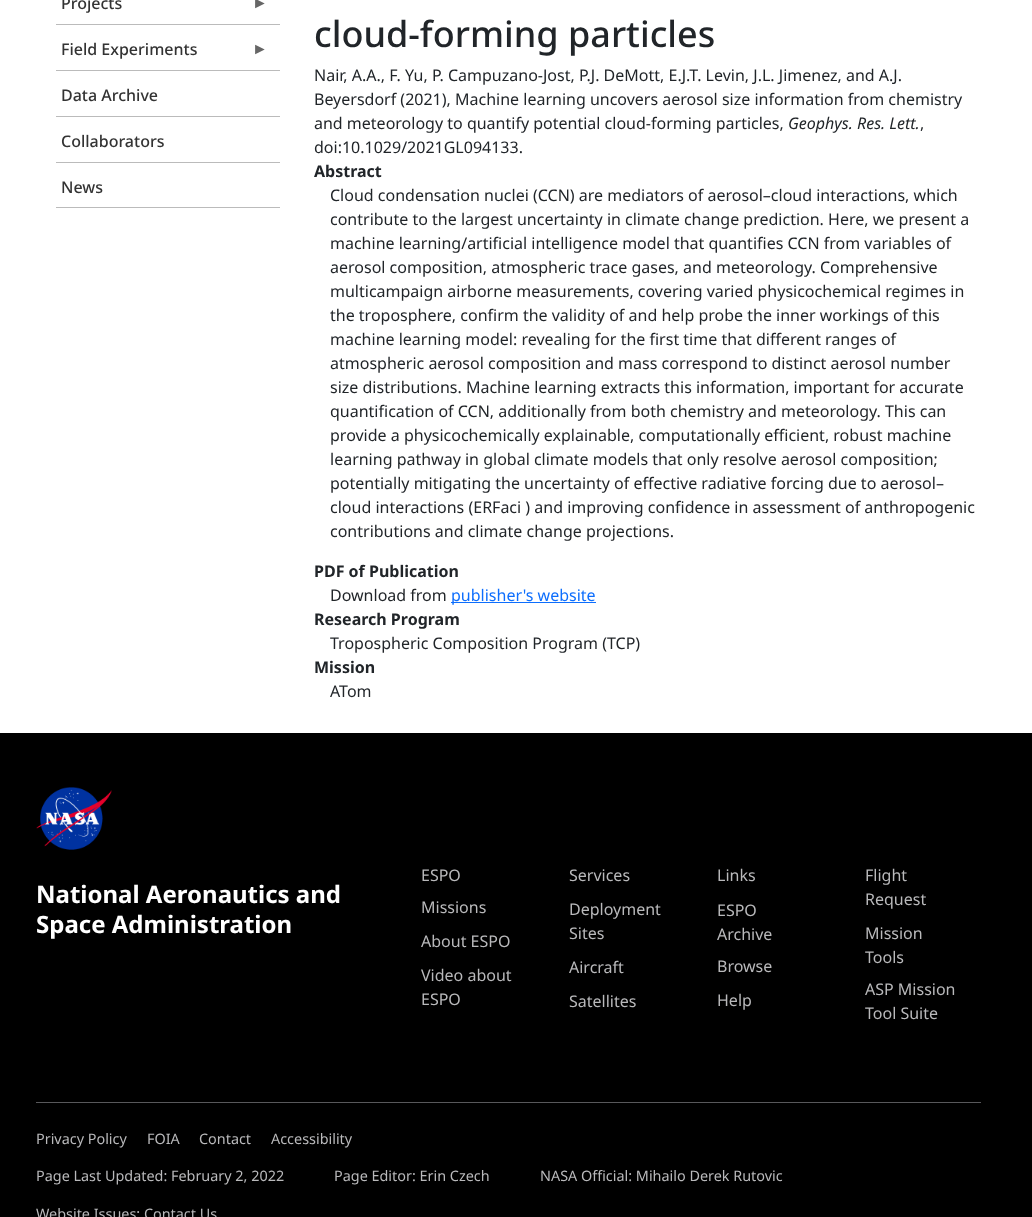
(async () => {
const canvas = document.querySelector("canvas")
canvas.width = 1032
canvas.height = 1217
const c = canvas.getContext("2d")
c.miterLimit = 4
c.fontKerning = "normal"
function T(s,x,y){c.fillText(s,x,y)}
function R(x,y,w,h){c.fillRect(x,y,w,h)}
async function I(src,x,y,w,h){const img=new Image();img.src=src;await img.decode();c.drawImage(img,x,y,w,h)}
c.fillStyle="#fff"
R(0,0,1032,1217)
c.fillStyle="#bbb"
R(56,24,224,1)
c.font="500 16px Noto Sans"
c.fillStyle="#333"
T("Projects",61,9)
c.font="16px Liberation Sans"
c.fillStyle="#666"
T("►",252,8)
c.fillStyle="#bbb"
R(56,70,224,1)
c.font="500 16px Noto Sans"
c.fillStyle="#333"
T("Field Experiments",61,55)
c.font="16px Liberation Sans"
c.fillStyle="#666"
T("►",252,54)
c.fillStyle="#bbb"
R(56,116,224,1)
c.font="500 16px Noto Sans"
c.fillStyle="#333"
T("Data Archive",61,101)
c.fillStyle="#bbb"
R(56,162,224,1)
c.fillStyle="#333"
T("Collaborators",61,147)
c.fillStyle="#bbb"
R(56,207,224,1)
c.fillStyle="#333"
T("News",61,193)
c.font="500 36px Noto Sans"
c.fillStyle="#212529"
T("cloud-forming particles",314,47)
c.font="16px Noto Sans"
T("Nair, A.A., F. Yu, P. Campuzano-Jost, P.J. DeMott, E.J.T. Levin, J.L. Jimenez, and A.J.",314,81)
T("Beyersdorf (2021), Machine learning uncovers aerosol size information from chemistry",314,105)
T("and meteorology to quantify potential cloud-forming particles,",314,129)
c.font="italic 16px Noto Sans"
T("Geophys. Res. Lett.",788,129)
c.font="16px Noto Sans"
T(",",920,129)
T("doi:10.1029/2021GL094133.",314,153)
c.font="bold 16px Noto Sans"
T("Abstract",314,177)
c.font="16px Noto Sans"
T("Cloud condensation nuclei (CCN) are mediators of aerosol–cloud interactions, which",330,201)
T("contribute to the largest uncertainty in climate change prediction. Here, we present a",330,225)
T("machine learning/artificial intelligence model that quantifies CCN from variables of",330,249)
T("aerosol composition, atmospheric trace gases, and meteorology. Comprehensive",330,273)
T("multicampaign airborne measurements, covering varied physicochemical regimes in",330,297)
T("the troposphere, confirm the validity of and help probe the inner workings of this",330,321)
T("machine learning model: revealing for the first time that different ranges of",330,345)
T("atmospheric aerosol composition and mass correspond to distinct aerosol number",330,369)
T("size distributions. Machine learning extracts this information, important for accurate",330,393)
T("quantification of CCN, additionally from both chemistry and meteorology. This can",330,417)
T("provide a physicochemically explainable, computationally efficient, robust machine",330,441)
T("learning pathway in global climate models that only resolve aerosol composition;",330,465)
T("potentially mitigating the uncertainty of effective radiative forcing due to aerosol–",330,489)
T("cloud interactions (ERFaci ) and improving confidence in assessment of anthropogenic",330,513)
T("contributions and climate change projections.",330,537)
c.font="bold 16px Noto Sans"
T("PDF of Publication",314,577)
c.font="16px Noto Sans"
T("Download from",330,601)
c.fillStyle="#0d6efd"
R(451,602,145,1)
T("publisher's website",451,601)
c.font="bold 16px Noto Sans"
c.fillStyle="#212529"
T("Research Program",314,625)
c.font="16px Noto Sans"
T("Tropospheric Composition Program (TCP)",330,649)
c.font="bold 16px Noto Sans"
T("Mission",314,673)
c.font="16px Noto Sans"
T("ATom",330,697)
c.fillStyle="#000"
R(0,733,1032,484)
await I("1.png",36,787,76,63)
c.font="bold 24px Noto Sans"
c.fillStyle="#fff"
T("National Aeronautics and",36,903)
T("Space Administration",36,933)
c.font="16px Noto Sans"
c.fillStyle="#b9b9bb"
T("Services",569,881)
T("Links",717,881)
T("Missions",421,913)
T("Deployment",569,915)
T("Sites",569,939)
T("About ESPO",421,947)
T("Video about",421,981)
T("ESPO",421,1005)
T("Aircraft",569,973)
T("Satellites",569,1007)
T("ESPO",421,881)
T("Flight",865,881)
T("Request",865,905)
T("ESPO",717,916)
T("Archive",717,940)
T("Browse",717,972)
T("Help",717,1006)
T("Mission",865,939)
T("Tools",865,963)
T("ASP Mission",865,995)
T("Tool Suite",865,1019)
c.fillStyle="#58585b"
R(36,1102,945,1)
c.font="14.4px Noto Sans"
c.fillStyle="#b9b9bb"
T("Privacy Policy",36,1144)
T("FOIA",147,1144)
T("Contact",199,1144)
T("Accessibility",271,1144)
T("Page Last Updated: February 2, 2022",36,1181)
T("Page Editor: Erin Czech",334,1181)
T("NASA Official: Mihailo Derek Rutovic",540,1181)
T("Website Issues: Contact Us",36,1219)
})()
